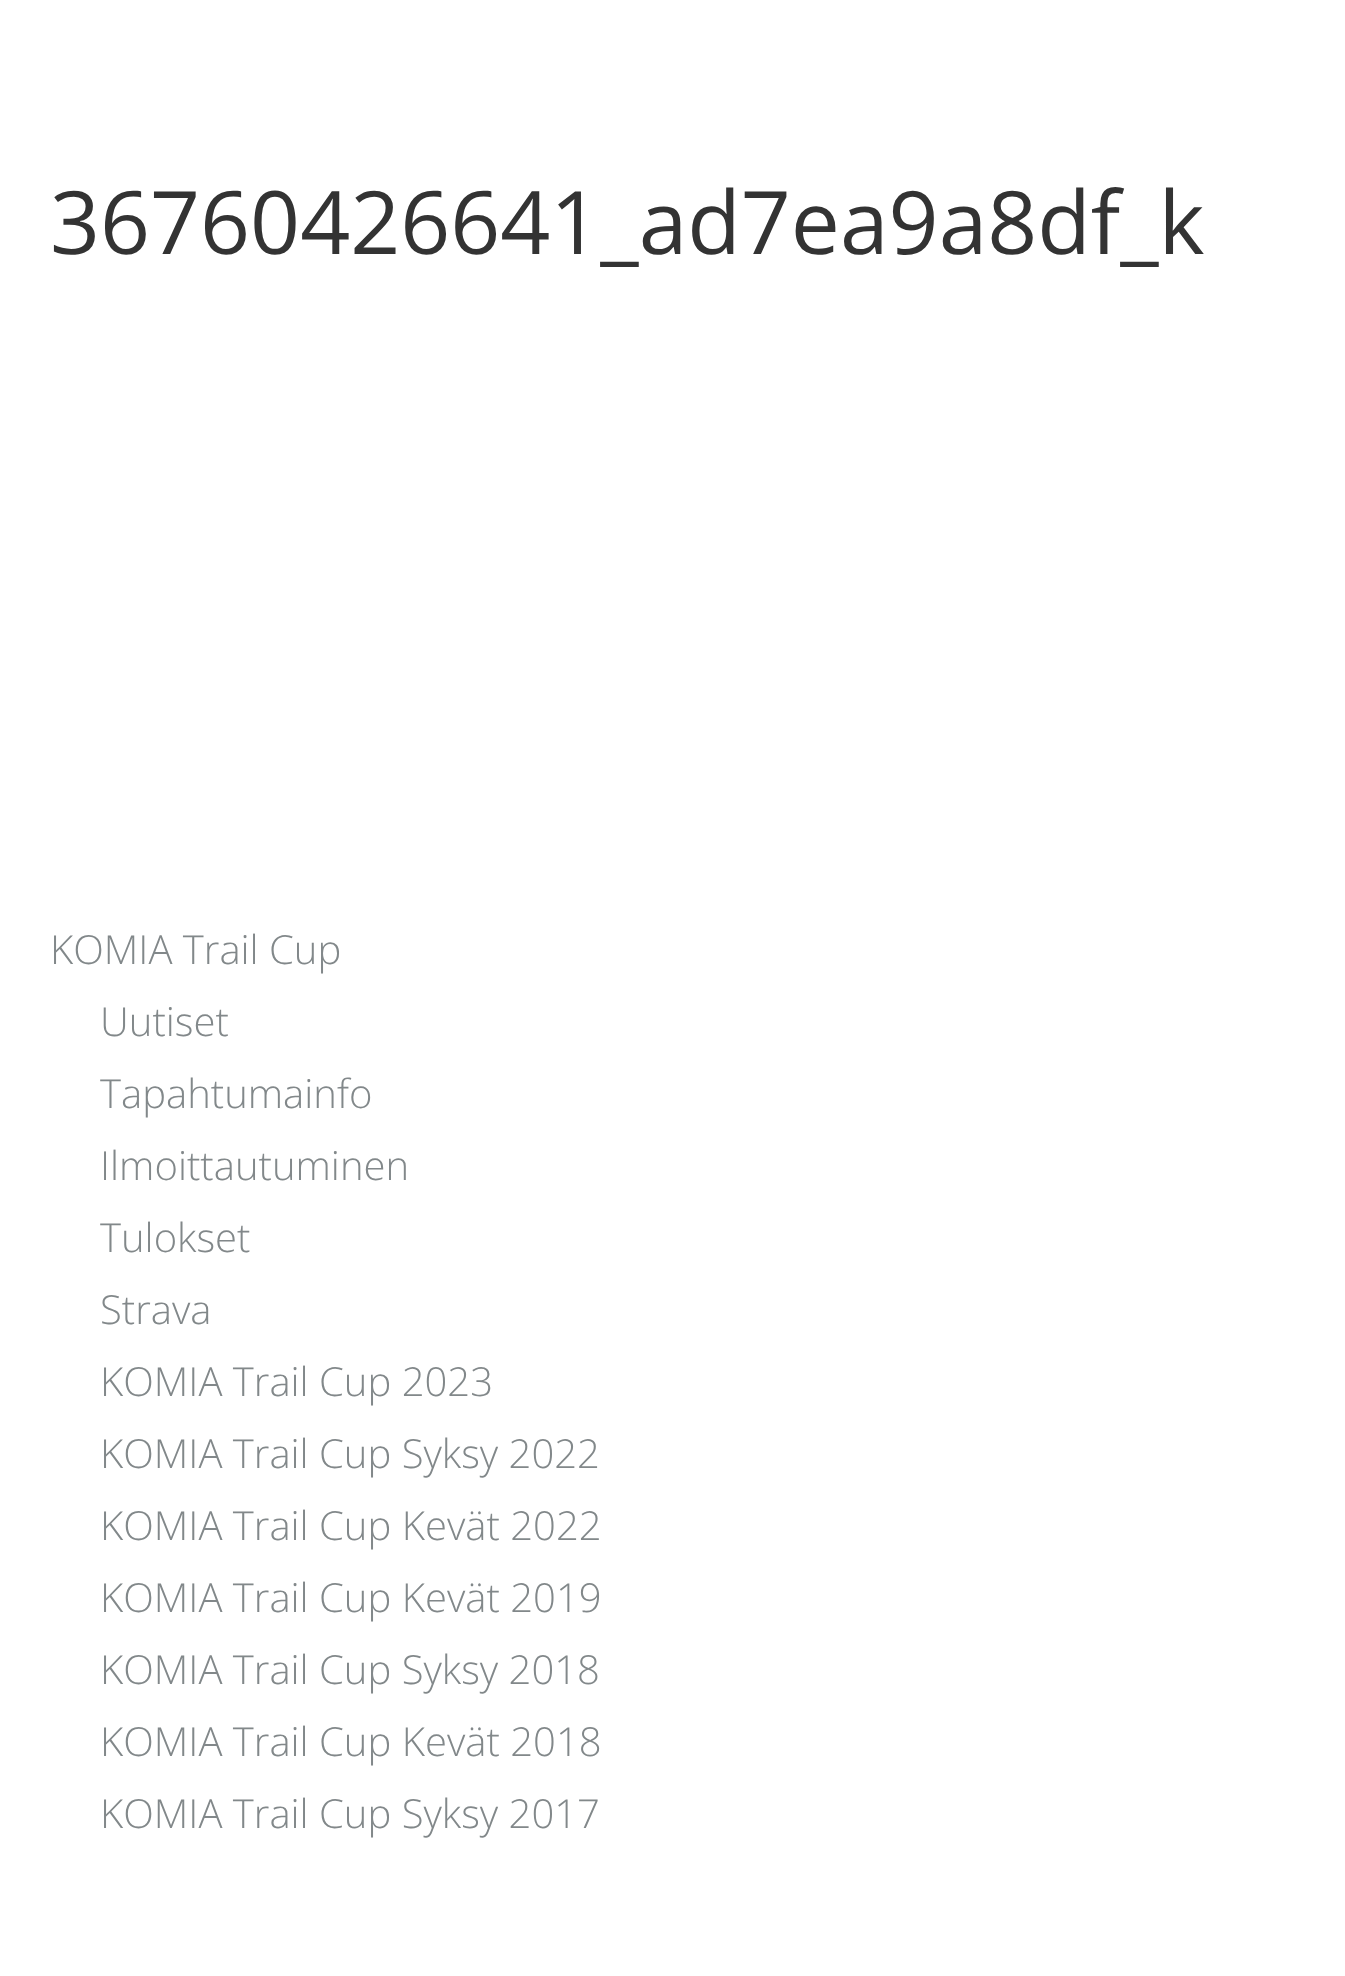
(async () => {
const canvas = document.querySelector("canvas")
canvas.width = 1345
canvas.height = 1976
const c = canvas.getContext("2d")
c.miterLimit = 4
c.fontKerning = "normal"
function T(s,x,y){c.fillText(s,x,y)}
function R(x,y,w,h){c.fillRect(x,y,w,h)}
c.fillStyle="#fff"
R(0,0,1345,1976)
c.font="87.5px Open Sans"
c.fillStyle="#333"
T("36760426641_ad7ea9a8df_k",50,254)
c.font="300 40px Open Sans"
c.fillStyle="#82888a"
T("KOMIA Trail Cup",50,964)
T("Uutiset",100,1036)
T("Tapahtumainfo",100,1108)
T("Ilmoittautuminen",100,1180)
T("Tulokset",100,1252)
T("Strava",100,1324)
T("KOMIA Trail Cup 2023",100,1396)
T("KOMIA Trail Cup Syksy 2022",100,1468)
T("KOMIA Trail Cup Kevät 2022",100,1540)
T("KOMIA Trail Cup Kevät 2019",100,1612)
T("KOMIA Trail Cup Syksy 2018",100,1684)
T("KOMIA Trail Cup Kevät 2018",100,1756)
T("KOMIA Trail Cup Syksy 2017",100,1828)
})()
